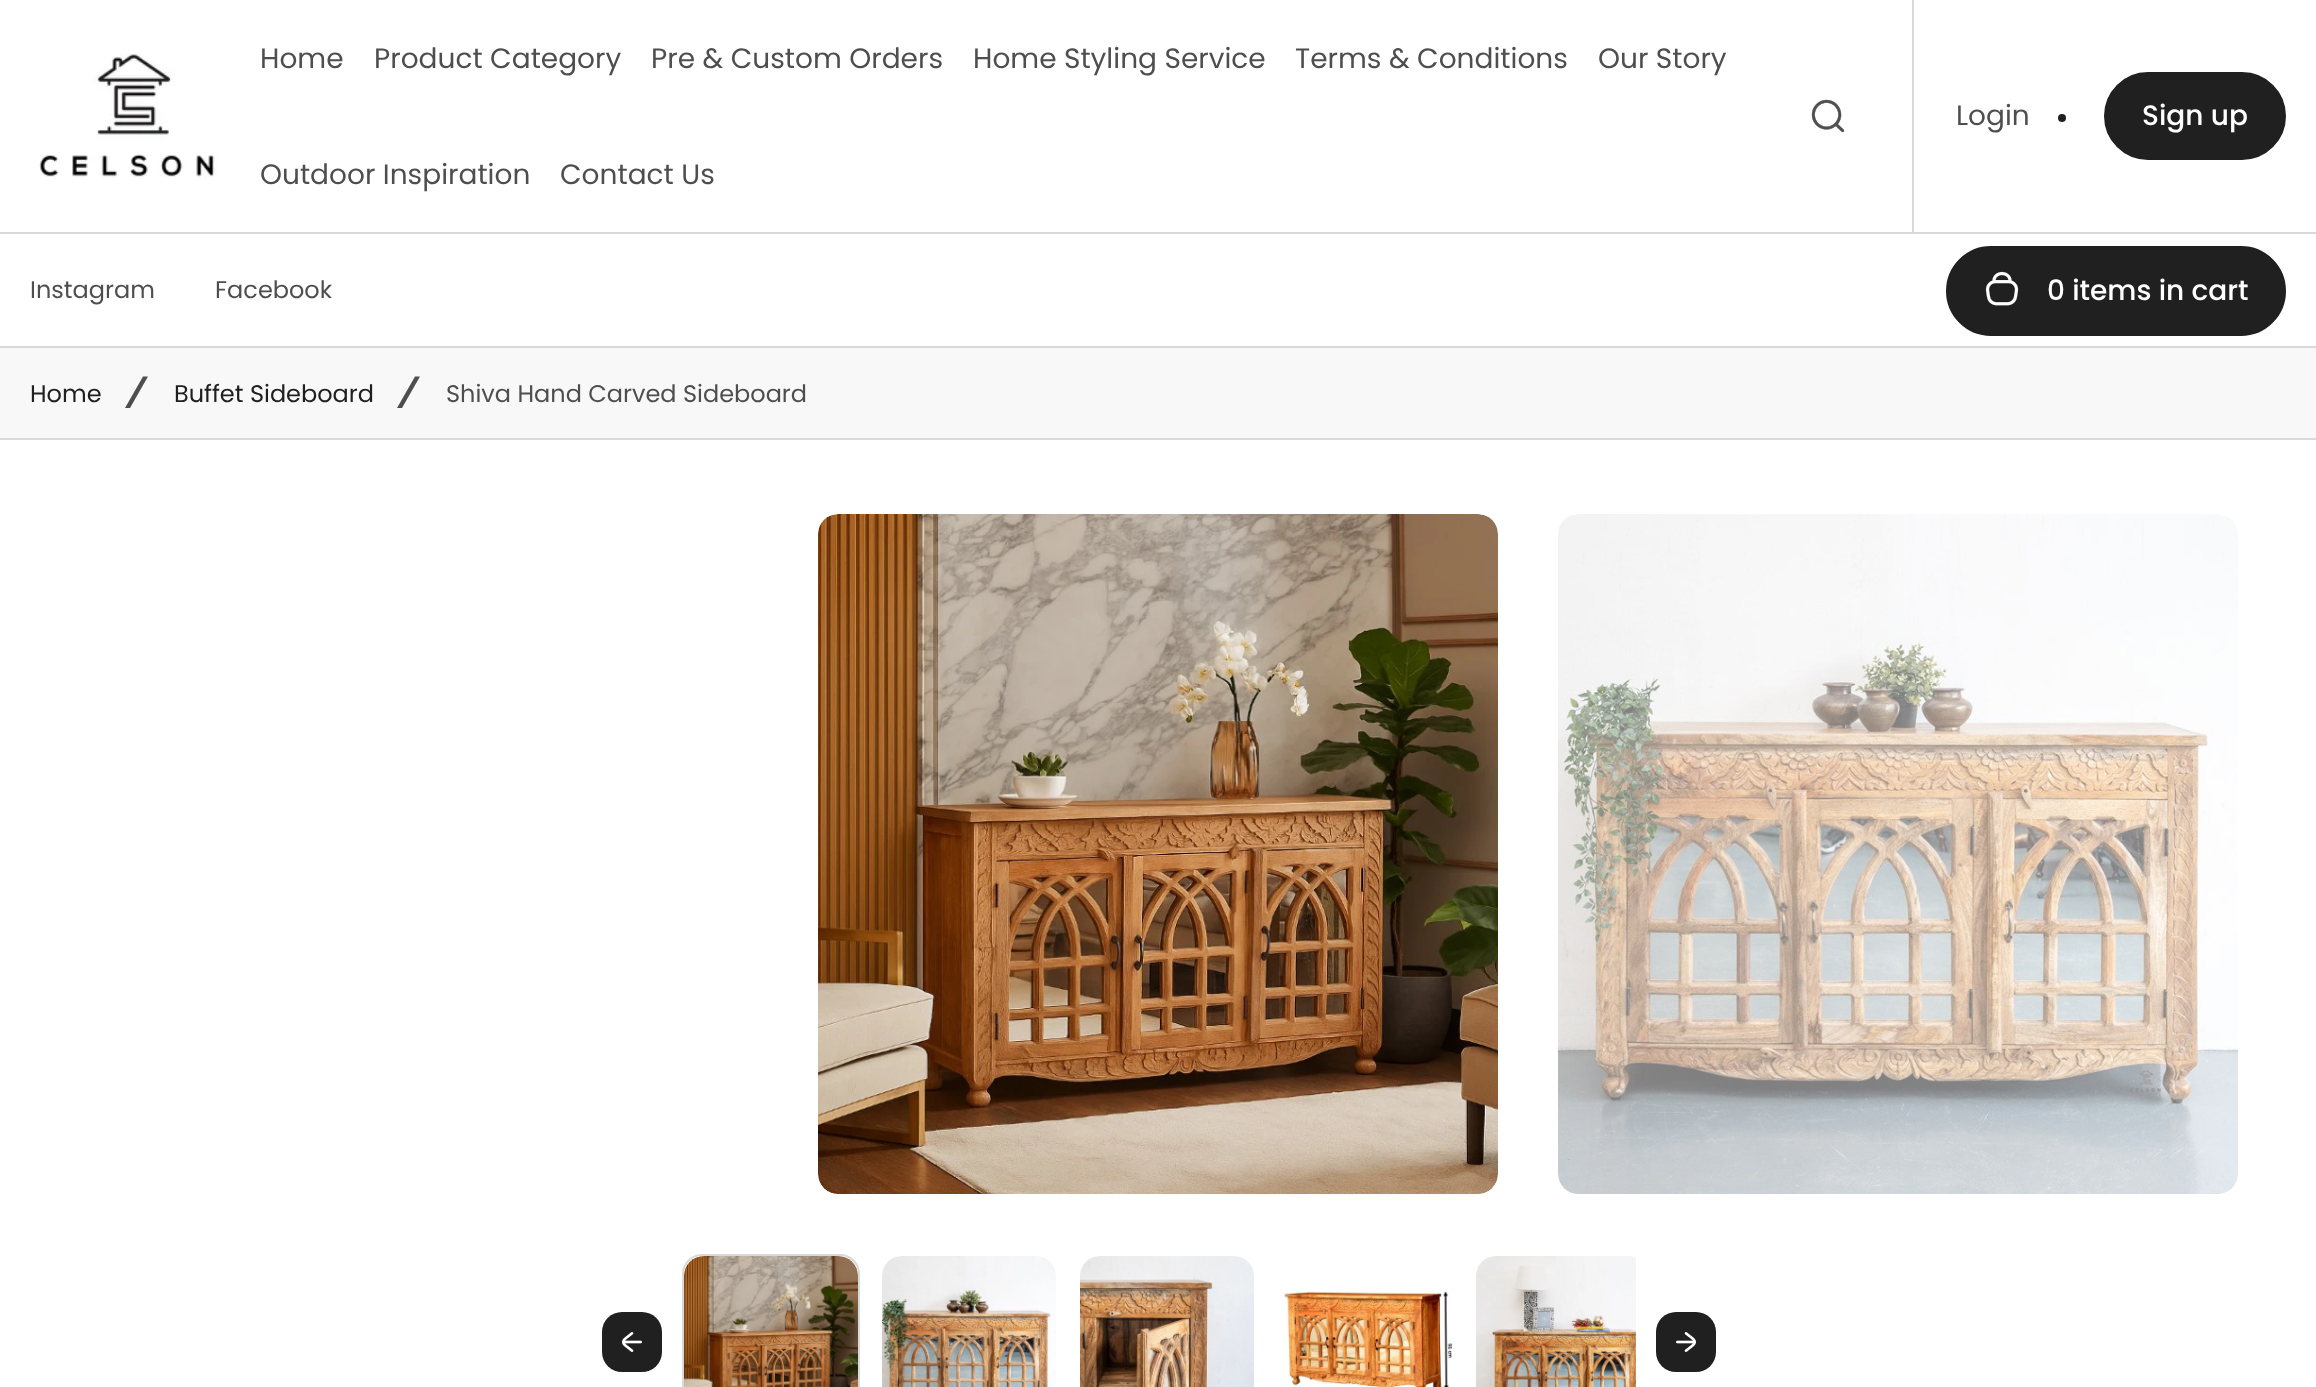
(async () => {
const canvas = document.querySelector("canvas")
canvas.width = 2316
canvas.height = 1387
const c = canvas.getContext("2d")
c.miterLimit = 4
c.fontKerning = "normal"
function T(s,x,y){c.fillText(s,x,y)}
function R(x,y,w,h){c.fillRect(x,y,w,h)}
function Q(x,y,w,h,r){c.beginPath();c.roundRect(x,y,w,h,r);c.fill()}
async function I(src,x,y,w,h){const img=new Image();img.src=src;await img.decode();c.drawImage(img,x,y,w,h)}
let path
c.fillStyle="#fff"
R(0,0,2316,1387)
c.fillStyle="#d9d9d9"
R(0,232,2316,2)
await I("1.png",39,54,178,124)
c.font="28px Poppins"
c.fillStyle="#4e4e4e"
T("Home",260,68)
T("Product Category",374,68)
T("Pre & Custom Orders",651,68)
T("Home Styling Service",973,68)
T("Terms & Conditions",1295,68)
T("Our Story",1598,68)
T("Outdoor Inspiration",260,184)
T("Contact Us",560,184)
await I("2.png",1811,99,34,34)
c.fillStyle="#d9d9d9"
R(1912,0,2,232)
c.fillStyle="#4e4e4e"
T("Login",1956,125)
c.fillStyle="#202020"
c.beginPath()
c.arc(2062,118,4,0,7)
c.fill()
c.beginPath()
c.roundRect(2105,73,180,86,43)
c.fill()
c.strokeStyle="#202020"
c.lineWidth=2
c.stroke()
c.font="500 28px Poppins"
c.fillStyle="#fff"
T("Sign up",2142,125)
c.fillStyle="#d9d9d9"
R(0,346,2316,2)
c.font="24px Poppins"
c.fillStyle="#4e4e4e"
T("Instagram",30,298)
T("Facebook",215,298)
c.fillStyle="#202020"
c.beginPath()
c.roundRect(1947,247,338,88,44)
c.fill()
c.stroke()
await I("3.png",1985,271,34,35)
c.font="500 28px Poppins"
c.fillStyle="#fff"
T("0 items in cart",2047,300)
c.fillStyle="#f8f8f8"
R(0,348,2316,90)
c.fillStyle="#d9d9d9"
R(0,438,2316,2)
c.font="24px Poppins"
c.fillStyle="#202020"
T("Home",30,402)
c.fillStyle="#4e4e4e"
path = new Path2D("M143 376.5h5l-18 31.5h-5z")
c.fill(path)
c.fillStyle="#202020"
T("Buffet Sideboard",174,402)
c.fillStyle="#4e4e4e"
path = new Path2D("M415 376.5h5l-18 31.5h-5z")
c.fill(path)
T("Shiva Hand Carved Sideboard",446,402)
await I("4.png",818,514,680,680)
await I("5.png",1558,514,680,680)
c.beginPath()
c.roundRect(683,1255,176,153,19)
c.strokeStyle="#d9d9d9"
c.stroke()
await I("6.png",684,1256,174,131)
await I("7.png",882,1256,174,131)
await I("8.png",1080,1256,174,131)
await I("9.png",1284,1290,168,97)
await I("10.png",1476,1256,160,131)
c.fillStyle="#202020"
Q(602,1312,60,60,20)
await I("11.png",622,1332,20,20)
Q(1656,1312,60,60,20)
await I("12.png",1676,1332,20,20)
})()
